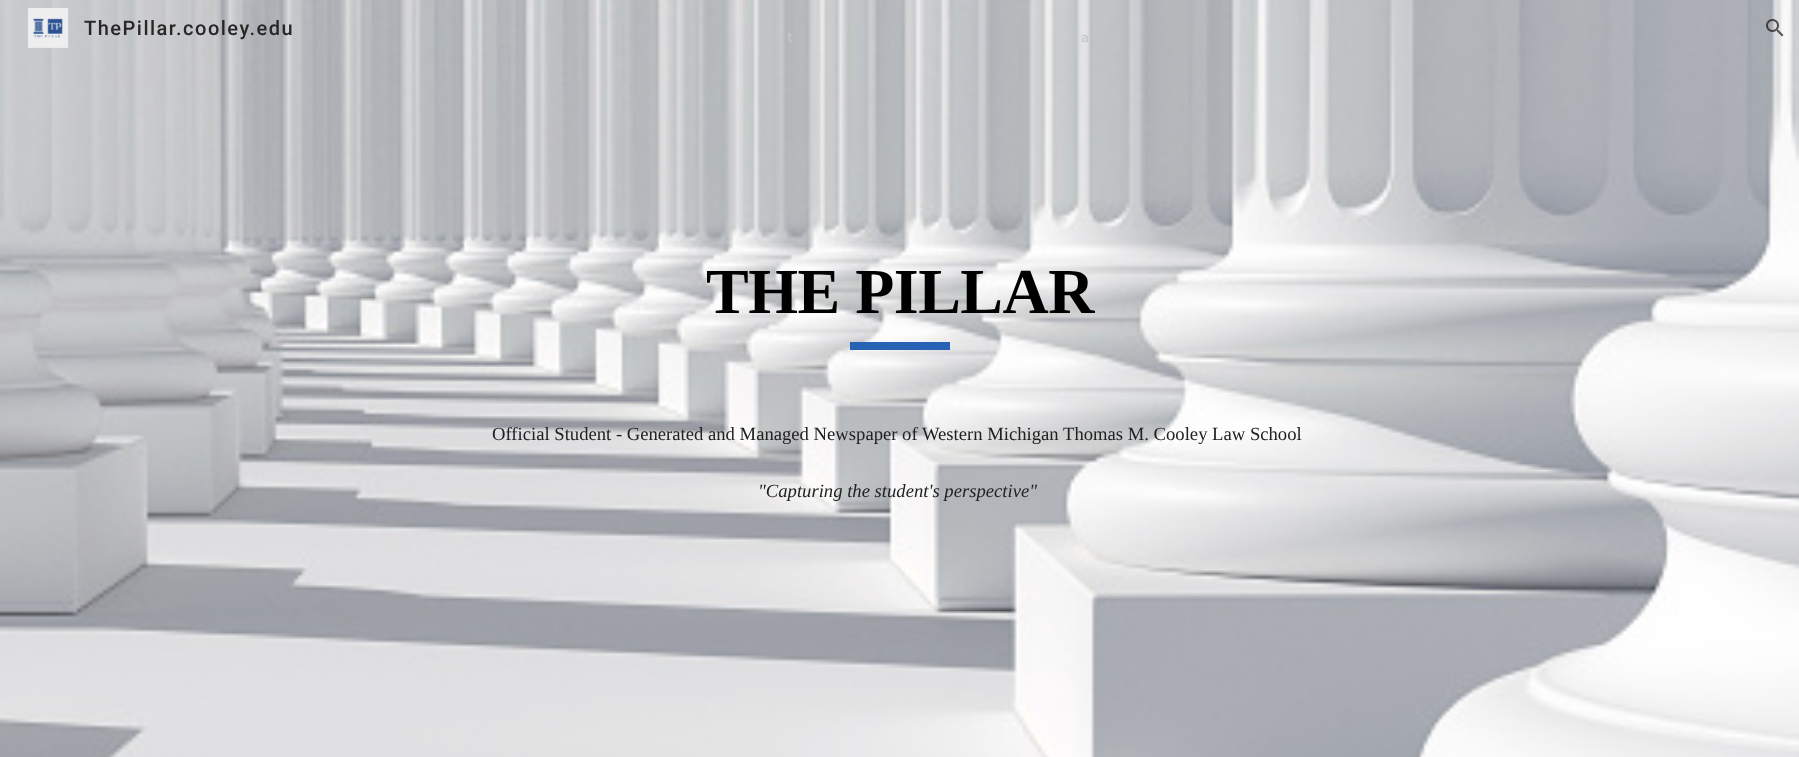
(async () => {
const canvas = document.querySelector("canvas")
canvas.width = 1799
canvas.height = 757
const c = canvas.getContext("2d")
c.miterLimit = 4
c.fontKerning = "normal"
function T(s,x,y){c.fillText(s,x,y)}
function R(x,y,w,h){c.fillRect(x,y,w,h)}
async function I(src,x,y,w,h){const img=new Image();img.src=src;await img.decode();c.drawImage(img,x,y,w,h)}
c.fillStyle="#fff"
R(0,0,1799,757)
await I("3.png",0,0,1799,757)
await I("1.png",27,8,42,40)
c.letterSpacing="1.5px"
c.font="500 20px Roboto"
c.fillStyle="#272728"
T("ThePillar.cooley.edu",84,35)
await I("2.png",1766,19,18,18)
c.letterSpacing="-0.5px"
c.font="bold 64px Liberation Serif"
c.fillStyle="#000"
T("THE PILLAR",706,313)
c.fillStyle="#2862b5"
R(850,342,100,8)
c.letterSpacing="0px"
c.font="18.65px Liberation Serif"
c.fillStyle="#212121"
T("Official Student - Generated and Managed Newspaper of Western Michigan Thomas M. Cooley Law School",492,440)
c.font="italic 18.65px Liberation Serif"
T("\"Capturing the student's perspective\"",758,497)
c.font="500 14px Google Sans"
c.fillStyle="#c5c8ca"
T("t",787,42)
T("a",1081,42)
})()
